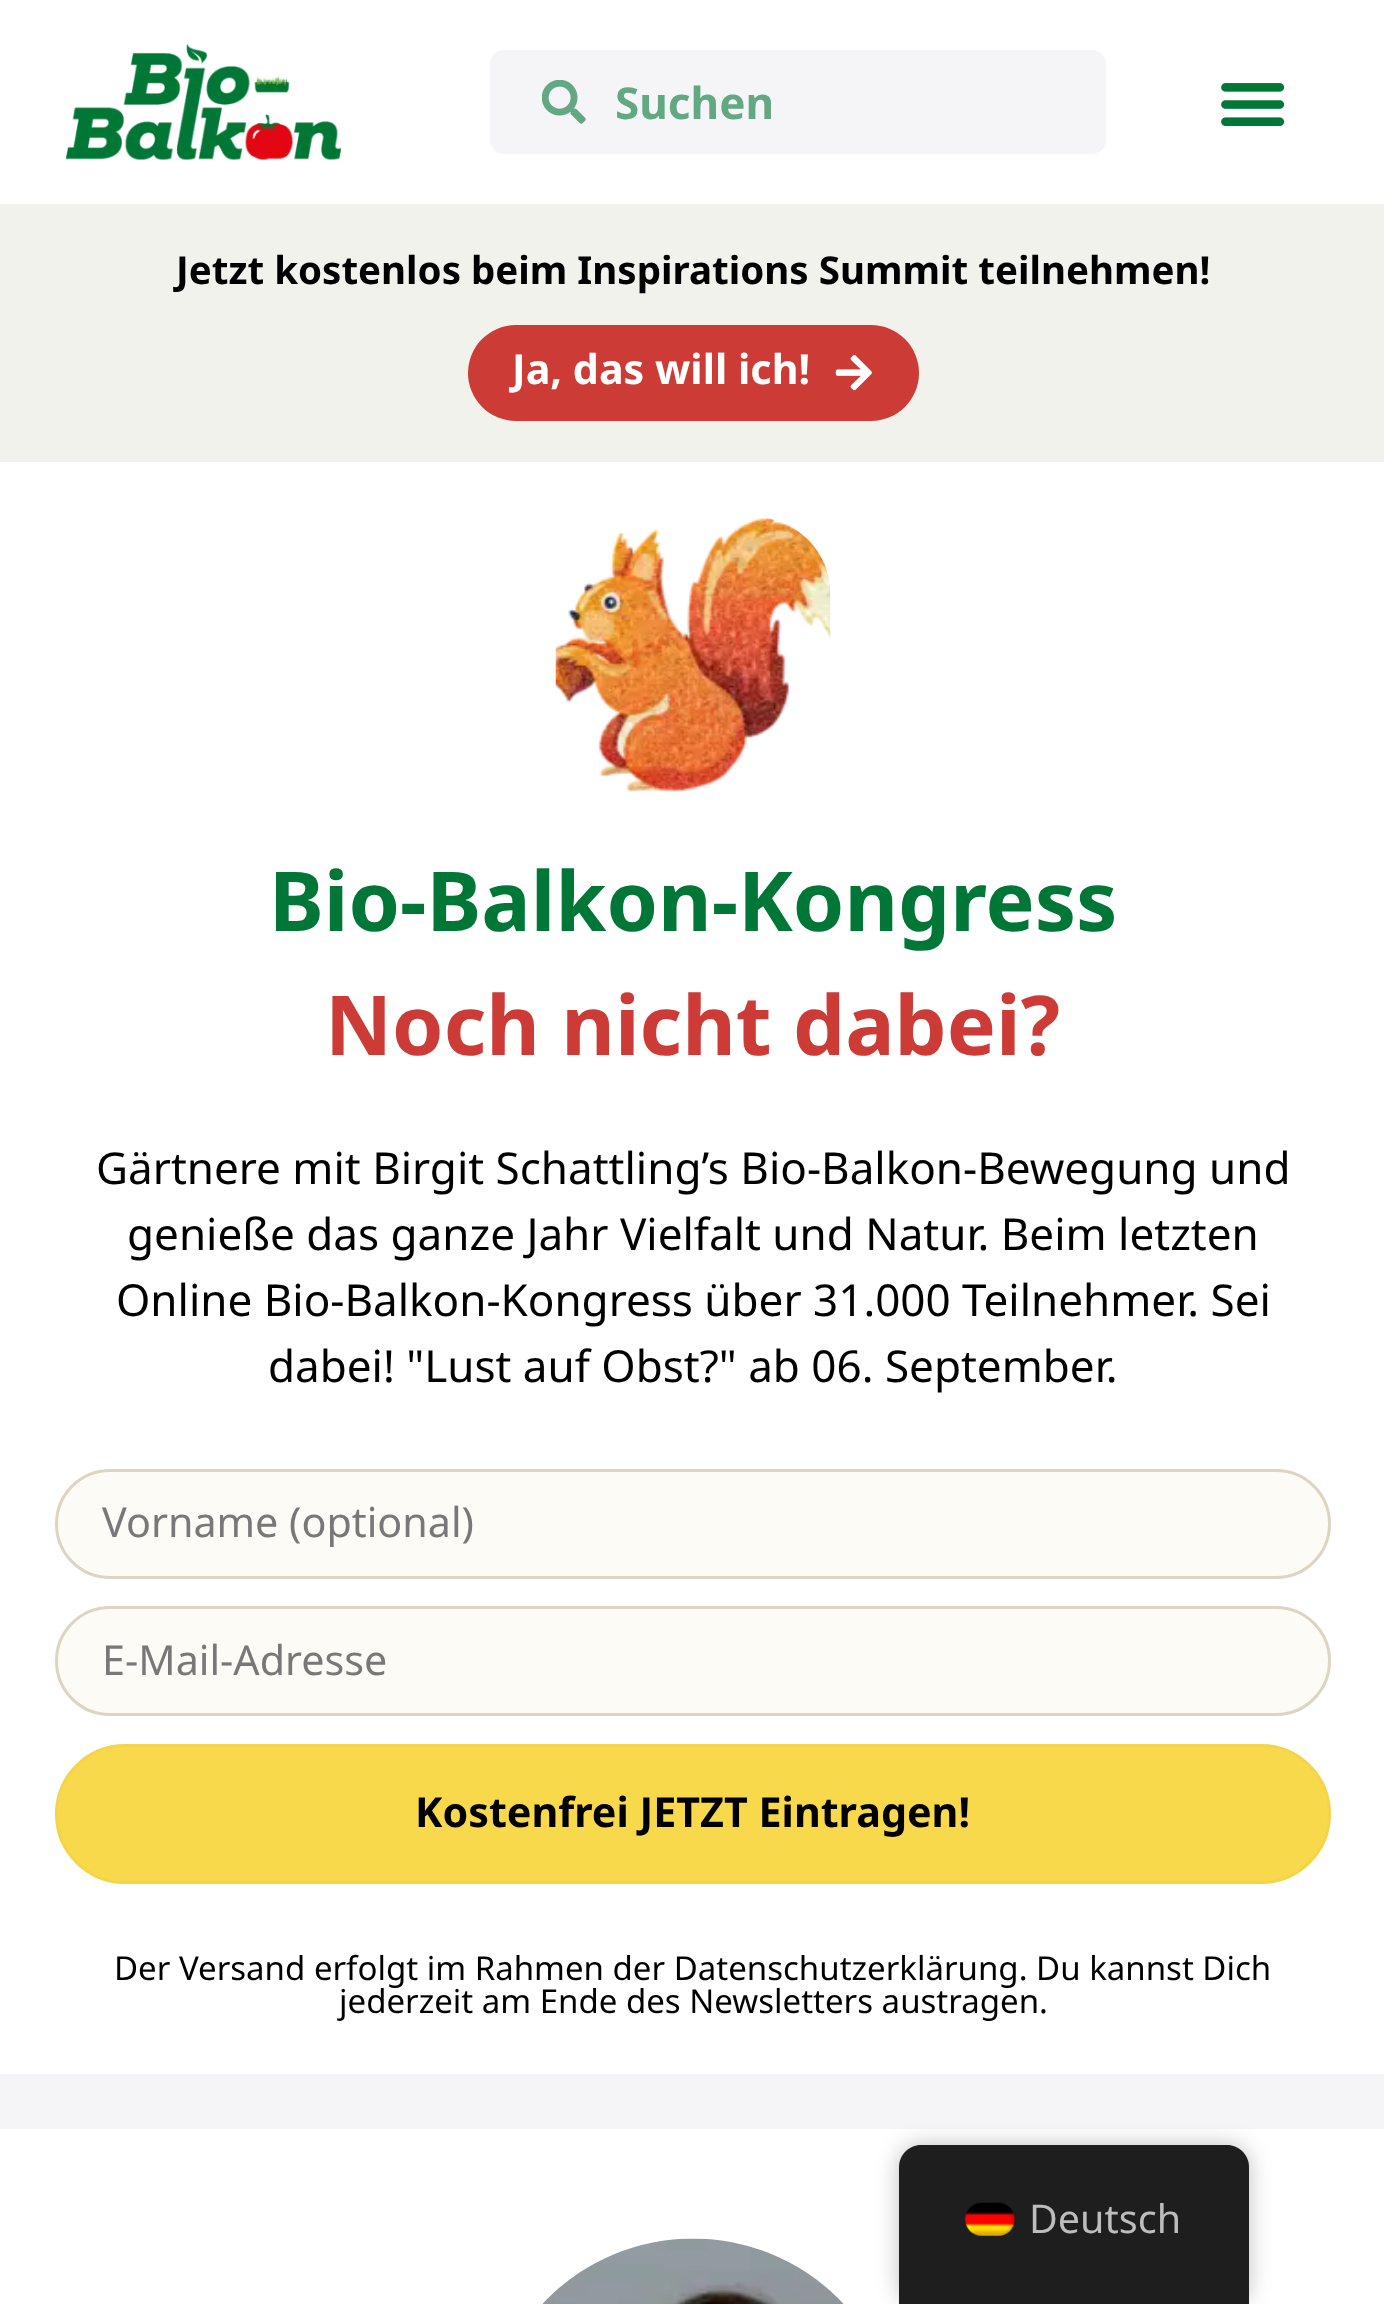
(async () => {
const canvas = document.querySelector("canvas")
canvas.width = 1384
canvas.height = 2304
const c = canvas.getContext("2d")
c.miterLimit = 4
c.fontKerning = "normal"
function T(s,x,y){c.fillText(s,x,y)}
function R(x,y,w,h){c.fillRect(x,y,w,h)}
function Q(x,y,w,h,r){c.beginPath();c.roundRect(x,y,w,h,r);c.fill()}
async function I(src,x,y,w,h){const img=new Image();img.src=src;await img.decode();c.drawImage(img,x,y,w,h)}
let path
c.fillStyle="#f5f5f7"
R(0,0,1384,2304)
c.fillStyle="#fff"
R(0,0,1384,204)
await I("1.png",66,44,275,116)
c.fillStyle="#f5f5f7"
Q(490,50,616,104,14)
await I("2.png",542,80,44,44)
c.font="bold 44px Noto Sans"
c.fillStyle="#62a983"
T("Suchen",615,119)
await I("3.png",1221,83,64,43)
c.fillStyle="#f1f2ec"
R(0,204,1384,258)
c.font="bold 38.5px Noto Sans"
c.fillStyle="#000"
T("Jetzt kostenlos beim Inspirations Summit teilnehmen!",176,284)
c.fillStyle="#cc3b36"
Q(468,325,451,96,48)
c.font="bold 41.25px Noto Sans"
c.fillStyle="#fff"
T("Ja, das will ich!",512,384)
await I("4.png",835,355,37,36)
R(0,462,1384,1612)
await I("5.png",555,518,276,274)
c.font="bold 82.5px Noto Sans"
c.fillStyle="#007736"
T("Bio-Balkon-Kongress",269,931)
c.fillStyle="#cc3b36"
T("Noch nicht dabei?",325,1055)
c.font="44px Noto Sans"
c.fillStyle="#000"
T("Gärtnere mit Birgit Schattling’s Bio-Balkon-Bewegung und",96,1184)
T("genieße das ganze Jahr Vielfalt und Natur. Beim letzten",127,1250)
T("Online Bio-Balkon-Kongress über 31.000 Teilnehmer. Sei",116,1316)
T("dabei! \"Lust auf Obst?\" ab 06. September.",268,1382)
c.fillStyle="#fdfbf5"
c.beginPath()
c.roundRect(56.5,1470.5,1273,107,53.5)
c.fill()
c.strokeStyle="#ddd4c2"
c.lineWidth=3
c.stroke()
c.font="41.25px Noto Sans"
c.fillStyle="#787878"
T("Vorname (optional)",102,1537)
c.fillStyle="#fdfbf5"
c.beginPath()
c.roundRect(56.5,1607.5,1273,107,53.5)
c.fill()
c.stroke()
c.fillStyle="#787878"
T("E-Mail-Adresse",102,1675)
c.fillStyle="#f9d94c"
c.beginPath()
c.roundRect(56.5,1745.5,1273,137,68.5)
c.fill()
c.strokeStyle="#f5d447"
c.stroke()
c.font="bold 41.25px Noto Sans"
c.fillStyle="#000"
T("Kostenfrei JETZT Eintragen!",415,1827)
c.font="33px Noto Sans"
T("Der Versand erfolgt im Rahmen der Datenschutzerklärung. Du kannst Dich",114,1980)
T("jederzeit am Ende des Newsletters austragen.",339,2013)
c.fillStyle="#fff"
R(0,2129,1384,175)
await I("6.png",542,2238,302,66)
c.fillStyle="#00000040"
c.filter="blur(11px)"
c.beginPath()
c.roundRect(899,2145,350,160,22)
c.fill()
c.filter="none"
c.fillStyle="#1e1e1e"
path = new Path2D("M921 2145h306c12 0 22 10 22 22v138h-350v-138c0-12 10-22 22-22z")
c.fill(path)
await I("7.png",965,2202,51,34)
c.font="39.5px Noto Sans"
c.fillStyle="#bdbdbd"
T("Deutsch",1029,2233)
})()
